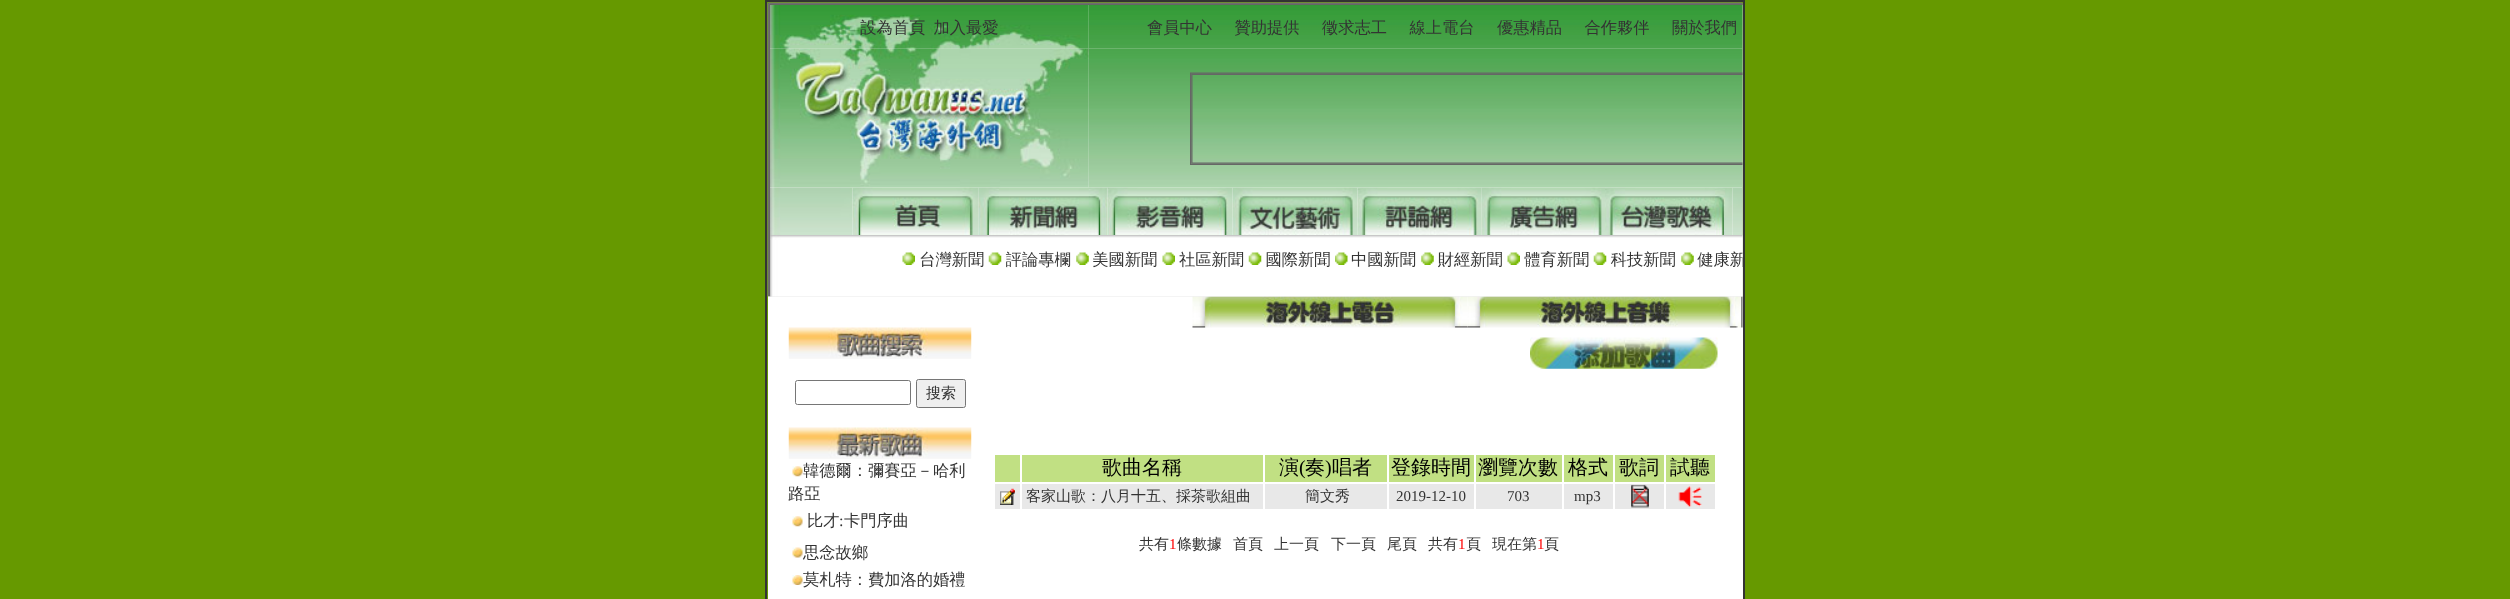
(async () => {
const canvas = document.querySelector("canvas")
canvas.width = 2510
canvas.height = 599
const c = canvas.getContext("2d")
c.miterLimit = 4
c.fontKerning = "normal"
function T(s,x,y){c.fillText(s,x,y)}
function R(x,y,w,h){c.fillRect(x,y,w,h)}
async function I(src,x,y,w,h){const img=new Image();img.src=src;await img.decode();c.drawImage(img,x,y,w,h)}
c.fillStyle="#690"
R(0,0,2510,599)
c.strokeStyle="#333"
c.strokeRect(765.5,.5,979,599)
c.strokeRect(766.5,1.5,977,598)
c.fillStyle="#fff"
R(768,296,975,303)
await I("2.png",1192,296,276,32)
await I("3.png",1467,296,276,32)
await I("1.png",767,2,976,295)
await I("4.png",788,327,184,32)
c.beginPath()
c.roundRect(795.5,380.5,115,24,2)
c.strokeStyle="#767676"
c.stroke()
c.fillStyle="#efefef"
c.beginPath()
c.roundRect(916.5,379.5,49,28,2)
c.fill()
c.stroke()
c.font="500 15px WenQuanYi Zen Hei"
c.fillStyle="#333"
T("搜索",926,398)
await I("5.png",788,427,184,32)
await I("6.png",792,466,11,11)
c.font="500 16.25px WenQuanYi Zen Hei"
T("韓德爾：彌賽亞－哈利",803,476)
T("路亞",788,499)
await I("6.png",792,516,11,11)
T("比才",807,526)
c.font="16.25px Liberation Serif"
T(":",839,526)
c.font="500 16.25px WenQuanYi Zen Hei"
T("卡門序曲",844,526)
await I("7.png",792,547,11,11)
T("思念故鄉",803,558)
await I("8.png",792,575,11,10)
T("莫札特：費加洛的婚禮",803,585)
await I("9.png",1530,337,188,32)
c.fillStyle="#c1e083"
R(995,455,720,27)
c.strokeStyle="#fff"
c.strokeRect(994.5,454.5,26,28)
c.strokeRect(1021.5,454.5,242,28)
c.font="500 20px WenQuanYi Zen Hei"
c.fillStyle="#000"
T("歌曲名稱",1102,474)
c.strokeRect(1264.5,454.5,123,28)
T("演",1279,474)
c.font="20px Liberation Serif"
T("(",1299,474)
c.font="500 20px WenQuanYi Zen Hei"
T("奏",1305,474)
c.font="20px Liberation Serif"
T(")",1325,474)
c.font="500 20px WenQuanYi Zen Hei"
T("唱者",1332,474)
c.strokeRect(1388.5,454.5,86,28)
T("登錄時間",1391,474)
c.strokeRect(1475.5,454.5,87,28)
T("瀏覽次數",1478,474)
c.strokeRect(1563.5,454.5,50,28)
T("格式",1568,474)
c.strokeRect(1614.5,454.5,50,28)
T("歌詞",1619,474)
c.strokeRect(1665.5,454.5,50,28)
T("試聽",1670,474)
c.fillStyle="#e8e8e8"
R(995,484,720,25)
c.strokeRect(994.5,483.5,26,26)
await I("10.png",1000,488,15,17)
c.strokeRect(1021.5,483.5,242,26)
c.font="500 15px WenQuanYi Zen Hei"
c.fillStyle="#333"
T("客家山歌：八月十五、採茶歌組曲",1026,501)
c.strokeRect(1264.5,483.5,123,26)
T("簡文秀",1305,501)
c.strokeRect(1388.5,483.5,86,26)
c.font="15px Liberation Serif"
T("2019-12-10",1396,501)
c.strokeRect(1475.5,483.5,87,26)
T("703",1507,501)
c.strokeRect(1563.5,483.5,50,26)
T("mp3",1574,501)
c.strokeRect(1614.5,483.5,50,26)
await I("11.png",1631,484,18,24)
c.strokeRect(1665.5,483.5,50,26)
await I("12.png",1678,486,24,21)
c.font="500 15px WenQuanYi Zen Hei"
T("共有",1139,549)
c.font="15px Liberation Serif"
c.fillStyle="#f00"
T("1",1169,549)
c.font="500 15px WenQuanYi Zen Hei"
c.fillStyle="#333"
T("條數據",1177,549)
T("首頁",1233,549)
T("上一頁",1274,549)
T("下一頁",1331,549)
T("尾頁",1387,549)
T("共有",1428,549)
c.font="15px Liberation Serif"
c.fillStyle="#f00"
T("1",1458,549)
c.font="500 15px WenQuanYi Zen Hei"
c.fillStyle="#333"
T("頁",1466,549)
T("現在第",1492,549)
c.font="15px Liberation Serif"
c.fillStyle="#f00"
T("1",1537,549)
c.font="500 15px WenQuanYi Zen Hei"
c.fillStyle="#333"
T("頁",1544,549)
})()
